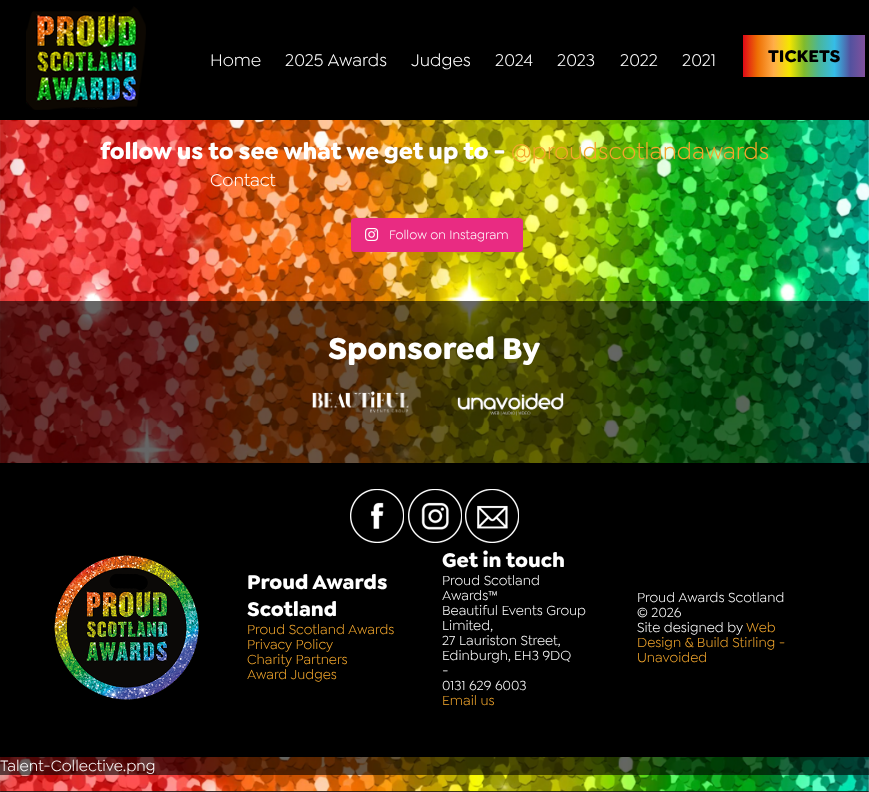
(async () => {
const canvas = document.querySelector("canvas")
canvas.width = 869
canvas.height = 792
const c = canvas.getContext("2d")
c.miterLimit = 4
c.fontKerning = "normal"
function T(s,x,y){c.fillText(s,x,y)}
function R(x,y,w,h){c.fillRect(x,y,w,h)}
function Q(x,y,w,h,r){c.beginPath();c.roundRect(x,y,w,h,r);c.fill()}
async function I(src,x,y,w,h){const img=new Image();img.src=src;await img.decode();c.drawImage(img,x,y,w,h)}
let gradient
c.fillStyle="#fff"
R(0,0,869,792)
c.fillStyle="#000"
R(0,0,869,120)
await I("1.png",26,6,120,104)
c.font="18px 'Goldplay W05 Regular'"
c.fillStyle="#fff"
T("Home",210,66)
T("2025 Awards",285,66)
T("Judges",411,66)
T("2024",495,66)
T("2023",557,66)
T("2022",620,66)
T("2021",682,66)
gradient = c.createLinearGradient(743,56,865,56)
gradient.addColorStop(0,"#df0917")
gradient.addColorStop(.12,"#ee7004")
gradient.addColorStop(.25,"#ffad49")
gradient.addColorStop(.38,"#f4e600")
gradient.addColorStop(.5,"#81bb2c")
gradient.addColorStop(.62,"#4bb698")
gradient.addColorStop(.75,"#35bde7")
gradient.addColorStop(.88,"#53529f")
gradient.addColorStop(1,"#82519c")
c.fillStyle = gradient
R(743,35,122,42)
c.font="bold 18px 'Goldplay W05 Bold'"
c.fillStyle="#000"
T("TICKETS",768,62)
await I("2.png",0,120,869,672)
c.font="18px 'Goldplay W05 Regular'"
c.fillStyle="#fff"
T("Contact",210,186)
c.font="bold 24px 'Goldplay W05 Bold'"
T("follow us to see what we get up to -",100,159)
c.font="24px 'Goldplay W05 Regular'"
c.fillStyle="#f2a62c"
T("@proudscotlandawards",511,159)
c.fillStyle="#e92b82"
Q(351,218,172,34,4)
await I("3.png",365,228,14,13)
c.font="13px 'Goldplay W05 Regular'"
c.fillStyle="#fff"
T("Follow on Instagram",389,239)
c.fillStyle="#00000099"
R(0,301,869,474)
c.font="bold 32px 'Goldplay W05 Bold'"
c.fillStyle="#fff"
T("Sponsored By",328,359)
await I("4.png",312,391,97,22)
await I("5.png",457,392,107,24)
c.fillStyle="#000"
R(0,463,869,294)
await I("6.png",350,489,54,54)
await I("7.png",408,489,54,54)
await I("8.png",465,489,54,54)
await I("9.png",54,555,145,145)
c.font="bold 21px 'Goldplay W05 Bold'"
c.fillStyle="#fff"
T("Proud Awards",247,589)
T("Scotland",247,616)
c.font="14px 'Goldplay W05 Regular'"
c.fillStyle="#f2a62c"
T("Proud Scotland Awards",247,634)
T("Privacy Policy",247,649)
T("Charity Partners",247,664)
T("Award Judges",247,679)
c.font="bold 21px 'Goldplay W05 Bold'"
c.fillStyle="#fff"
T("Get in touch",442,567)
c.font="14px 'Goldplay W05 Regular'"
T("Proud Scotland",442,585)
T("Awards™",442,600)
T("Beautiful Events Group",442,615)
T("Limited,",442,630)
T("27 Lauriston Street,",442,645)
T("Edinburgh, EH3 9DQ",442,660)
T("-",442,675)
T("0131 629 6003",442,690)
c.fillStyle="#f2a62c"
T("Email us",442,705)
c.fillStyle="#fff"
T("Proud Awards Scotland",637,602)
T("© 2026",637,617)
T("Site designed by",637,632)
c.fillStyle="#f2a62c"
T("Web",746,632)
T("Design & Build Stirling -",637,647)
T("Unavoided",637,662)
c.font="16px 'Goldplay W05 Regular'"
c.fillStyle="#fff"
T("Talent-Collective.png",0,771)
})()
